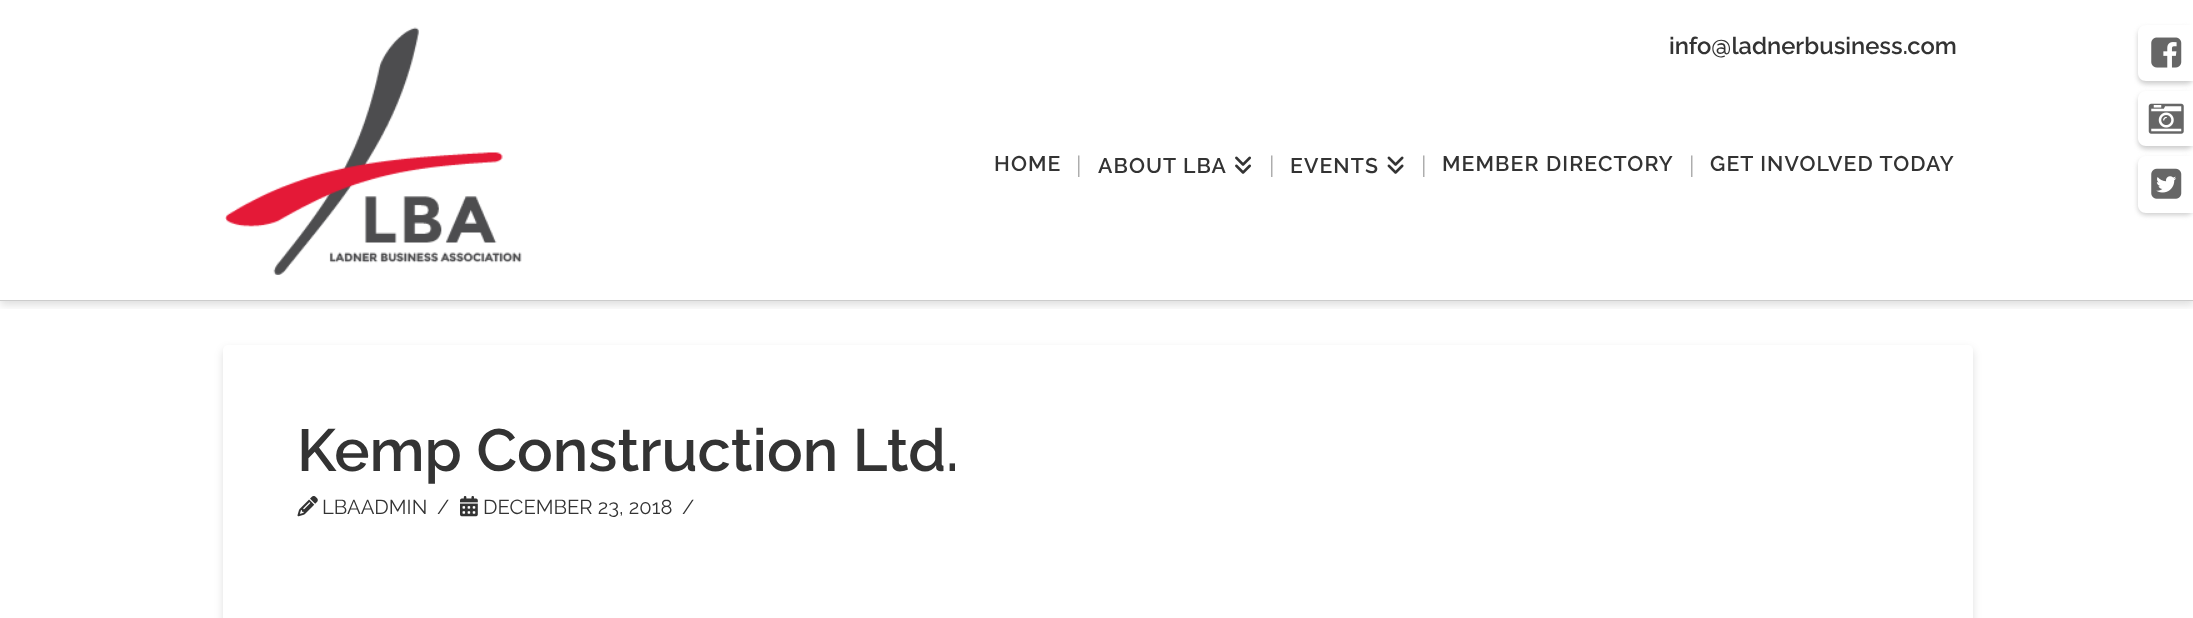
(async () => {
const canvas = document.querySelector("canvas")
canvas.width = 2193
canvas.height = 618
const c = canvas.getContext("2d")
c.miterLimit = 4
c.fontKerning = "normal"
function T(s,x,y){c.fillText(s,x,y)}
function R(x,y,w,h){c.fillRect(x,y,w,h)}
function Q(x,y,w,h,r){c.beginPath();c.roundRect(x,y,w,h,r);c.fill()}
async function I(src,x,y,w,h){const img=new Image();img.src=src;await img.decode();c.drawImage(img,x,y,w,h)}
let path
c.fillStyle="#fff"
R(0,0,2193,618)
c.save()
c.beginPath()
c.rect(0,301,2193,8)
c.clip()
c.fillStyle="#00000021"
c.filter="blur(4px)"
c.beginPath()
c.rect(0,4,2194,301)
c.fill()
c.filter="none"
c.restore()
c.fillStyle="#ccc"
R(0,300,2193,1)
await I("1.png",225,27,297,248)
c.font="600 23.75px Raleway"
c.fillStyle="#333"
T("info@ladnerbusiness.com",1669,54)
c.letterSpacing="1.1px"
c.font="600 21.25px Raleway"
T("HOME",994,171)
c.letterSpacing="0px"
c.font="23.75px Raleway"
c.fillStyle="#aaa"
T("|",1076,174)
c.letterSpacing="1.1px"
c.font="600 21.25px Raleway"
c.fillStyle="#333"
T("ABOUT LBA",1098,173)
await I("2.png",1235,156,16,18)
c.letterSpacing="0px"
c.font="23.75px Raleway"
c.fillStyle="#aaa"
T("|",1269,174)
c.letterSpacing="1.1px"
c.font="600 21.25px Raleway"
c.fillStyle="#333"
T("EVENTS",1290,173)
await I("3.png",1387,156,17,18)
c.letterSpacing="0px"
c.font="23.75px Raleway"
c.fillStyle="#aaa"
T("|",1421,174)
c.letterSpacing="1.1px"
c.font="600 21.25px Raleway"
c.fillStyle="#333"
T("MEMBER DIRECTORY",1442,171)
c.letterSpacing="0px"
c.font="23.75px Raleway"
c.fillStyle="#aaa"
T("|",1689,174)
c.letterSpacing="1.1px"
c.font="600 21.25px Raleway"
c.fillStyle="#333"
T("GET INVOLVED TODAY",1710,171)
c.save()
path = new Path2D("M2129 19h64v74h-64zm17 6h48v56h-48c-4.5 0-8-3.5-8-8v-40c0-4.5 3.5-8 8-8z")
c.clip(path,"evenodd")
c.fillStyle="#ccc"
c.filter="blur(2.5px)"
c.beginPath()
c.roundRect(2138,28,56,56,8)
c.fill()
c.filter="none"
c.restore()
await I("4.png",2151,37,31,31)
c.fillStyle="#ccc"
c.filter="blur(2.5px)"
c.beginPath()
c.roundRect(2138,94,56,55,8)
c.fill()
c.filter="none"
c.fillStyle="#fff"
path = new Path2D("M2146 91h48v55h-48c-4.5 0-8-3.5-8-8v-39c0-4.5 3.5-8 8-8z")
c.fill(path)
await I("5.png",2148,103,36,31)
c.fillStyle="#ccc"
c.filter="blur(2.5px)"
c.beginPath()
c.roundRect(2138,159,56,56,8)
c.fill()
c.filter="none"
c.fillStyle="#fff"
path = new Path2D("M2146 156h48v57h-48c-4.5 0-8-3.5-8-8v-41c0-4.5 3.5-8 8-8z")
c.fill(path)
await I("6.png",2151,168,31,31)
c.fillStyle="#00000021"
c.filter="blur(4px)"
c.beginPath()
c.roundRect(223,349,1750,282,5)
c.fill()
c.filter="none"
c.fillStyle="#fff"
Q(223,345,1750,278,5)
c.letterSpacing="0px"
c.font="600 59.4px Raleway"
c.fillStyle="#333"
T("Kemp Construction Ltd.",297,471)
await I("7.png",297,496,21,21)
c.font="20.25px Raleway"
T("LBAADMIN",322,514)
T("/",437,514)
await I("8.png",460,496,18,21)
T("DECEMBER 23, 2018",483,514)
T("/",682,514)
})()
